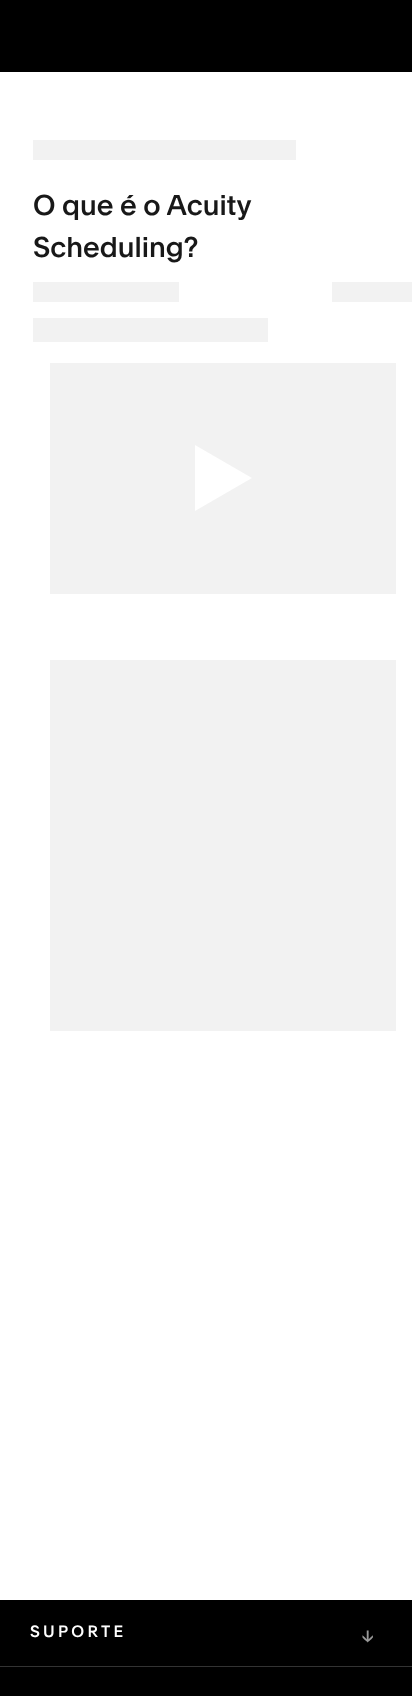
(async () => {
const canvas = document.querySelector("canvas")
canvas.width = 412
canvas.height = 1696
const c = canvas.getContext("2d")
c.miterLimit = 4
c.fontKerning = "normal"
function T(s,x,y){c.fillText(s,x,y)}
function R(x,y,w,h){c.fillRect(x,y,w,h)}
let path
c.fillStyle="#000"
R(0,0,412,1696)
c.fillStyle="#fff"
R(0,72,412,1528)
c.fillStyle="#f2f2f2"
R(33,140,263,20)
c.font="500 28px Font"
c.fillStyle="#181818"
T("O que é o Acuity",33,215)
T("Scheduling?",33,257)
c.fillStyle="#f2f2f2"
R(33,282,146,20)
R(332,282,80,20)
R(33,318,235,24)
R(50,363,346,231)
c.fillStyle="#fff"
path = new Path2D("M252 478l-57 33v-66z")
c.fill(path)
c.fillStyle="#f2f2f2"
R(50,660,346,371)
c.fillStyle="#333"
R(0,1666,412,1)
c.letterSpacing="3.25px"
c.font="500 16px Font"
c.fillStyle="#fff"
T("SUPORTE",30,1637)
c.fillStyle="#999"
T("↓",362,1642)
})()
